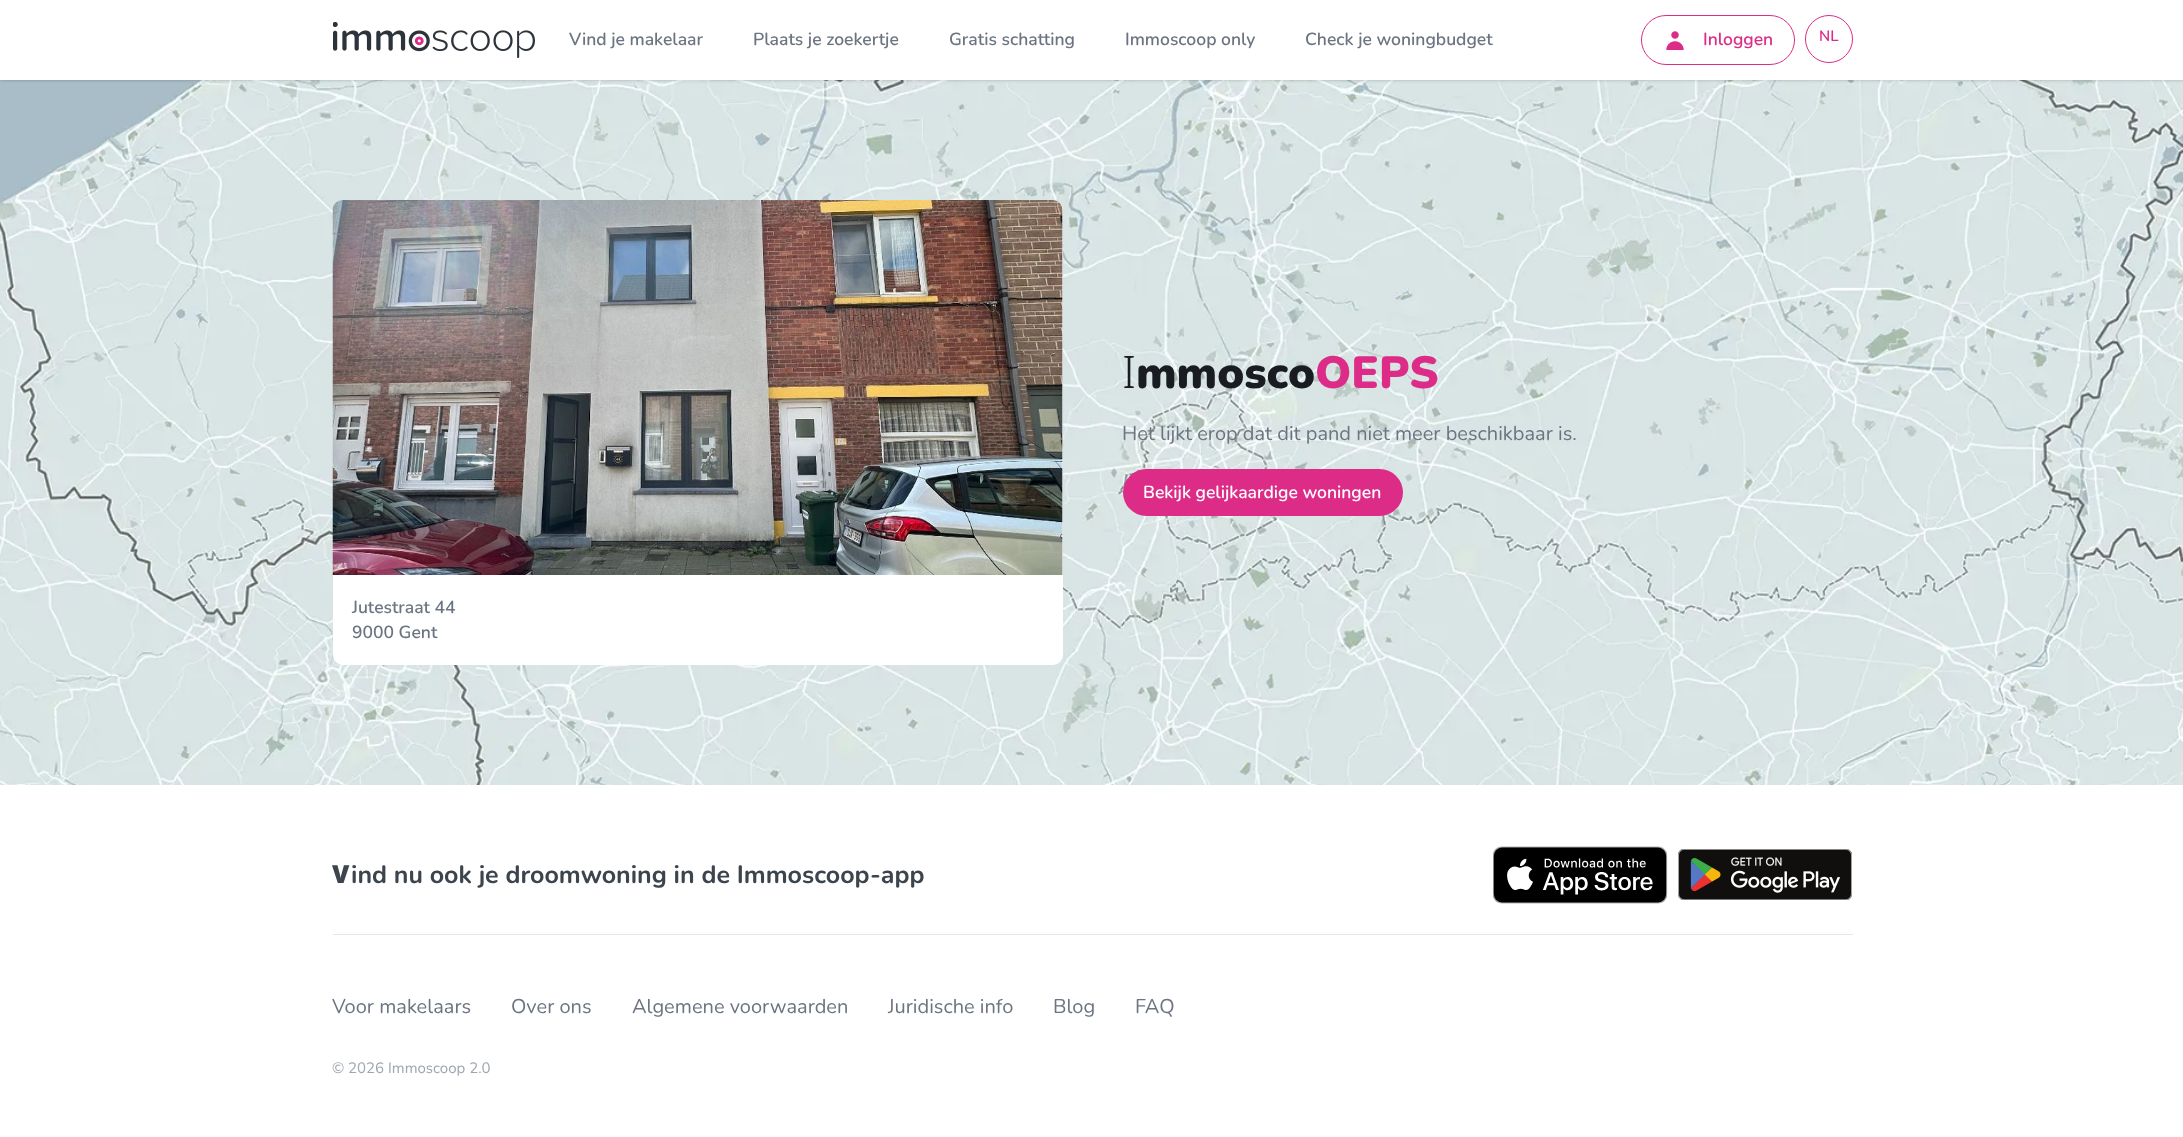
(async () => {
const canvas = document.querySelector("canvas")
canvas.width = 2183
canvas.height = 1137
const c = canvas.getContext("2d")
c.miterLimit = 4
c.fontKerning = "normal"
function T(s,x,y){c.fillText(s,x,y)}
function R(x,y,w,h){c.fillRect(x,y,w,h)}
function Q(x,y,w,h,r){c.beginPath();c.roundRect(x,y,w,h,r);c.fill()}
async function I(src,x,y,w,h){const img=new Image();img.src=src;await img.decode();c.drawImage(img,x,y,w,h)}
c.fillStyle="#fff"
R(0,0,2183,1137)
await I("3.png",0,80,2183,705)
c.save()
c.beginPath()
c.rect(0,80,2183,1)
c.clip()
c.fillStyle="#0000000f"
c.filter="blur(1px)"
c.beginPath()
c.rect(0,1,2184,80)
c.fill()
c.filter="none"
c.restore()
c.save()
c.beginPath()
c.rect(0,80,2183,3)
c.clip()
c.fillStyle="#0000001a"
c.filter="blur(2px)"
c.beginPath()
c.rect(0,1,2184,80)
c.fill()
c.filter="none"
c.restore()
await I("1.png",333,22,202,36)
c.font="600 17.5px Nunito"
c.fillStyle="#6b7480"
T("Vind je makelaar",569,45)
T("Plaats je zoekertje",753,45)
T("Gratis schatting",949,45)
T("Immoscoop only",1125,45)
T("Check je woningbudget",1305,45)
c.beginPath()
c.roundRect(1641.5,15.5,153,49,24.5)
c.strokeStyle="#dd2c88"
c.stroke()
await I("2.png",1666,31,18,19)
c.fillStyle="#dd2c88"
T("Inloggen",1703,45)
c.beginPath()
c.arc(1829,39,23.5,0,7)
c.stroke()
c.font="600 15px Nunito"
T("NL",1819,41)
c.font="300 45px Noto Sans"
c.fillStyle="#191c20"
T("I",1122,388)
c.font="900 45px Nunito"
T("mmosco",1136,388)
c.fillStyle="#dd2c88"
T("OEPS",1315,388)
c.font="20px Nunito"
c.fillStyle="#6b7480"
T("Het lijkt erop dat dit pand niet meer beschikbaar is.",1122,440)
c.fillStyle="#dd2c88"
Q(1123,469,280,47,23.5)
c.font="600 17.5px Nunito"
c.fillStyle="#fff"
T("Bekijk gelijkaardige woningen",1143,498)
Q(333,200,730,465,10)
c.fillStyle="#e5e8eb"
c.beginPath()
c.roundRect(333,200,730,375,[10,10,0,0])
c.fill()
await I("4.png",332,200,731,375)
c.fillStyle="#6b7480"
T("Jutestraat 44",352,613)
T("9000 Gent",352,638)
c.fillStyle="#e5e8eb"
R(333,934,1520,1)
c.font="900 25px Noto Sans"
c.fillStyle="#3c444e"
T("V",332,883)
c.font="bold 25px Nunito"
T("ind nu ook je droomwoning in de Immoscoop-app",351,883)
await I("5.png",1493,846,175,58)
await I("6.png",1678,849,174,51)
c.font="20px Nunito"
c.fillStyle="#6b7480"
T("Voor makelaars",332,1013)
T("Over ons",511,1013)
T("Algemene voorwaarden",632,1013)
T("Juridische info",888,1013)
T("Blog",1053,1013)
T("FAQ",1135,1013)
c.font="15px Nunito"
c.fillStyle="#9da5af"
T("© 2026 Immoscoop 2.0",332,1073)
})()
